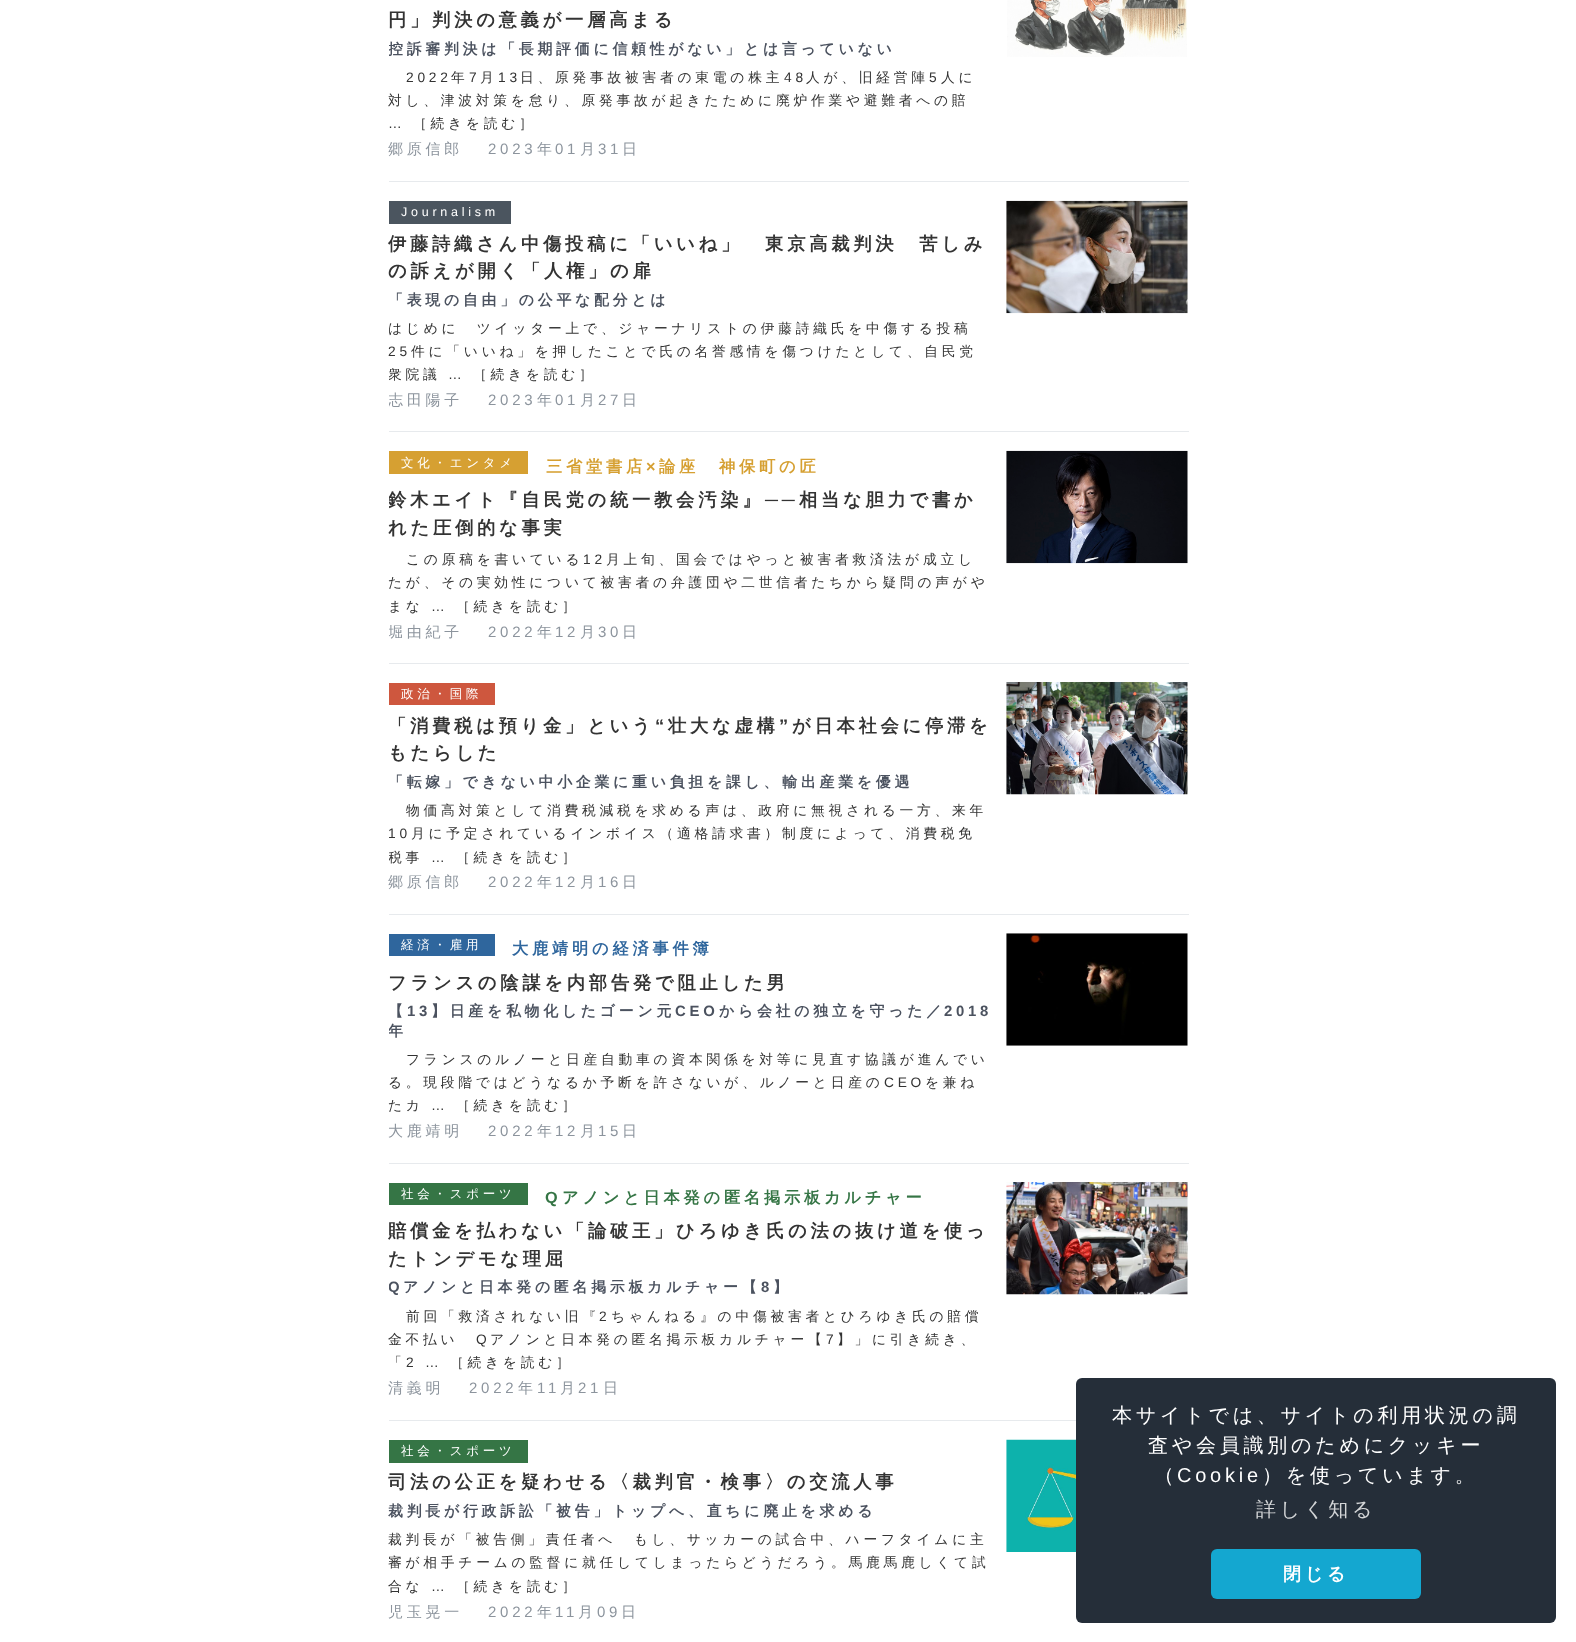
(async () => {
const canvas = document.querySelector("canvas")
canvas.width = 1576
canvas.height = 1642
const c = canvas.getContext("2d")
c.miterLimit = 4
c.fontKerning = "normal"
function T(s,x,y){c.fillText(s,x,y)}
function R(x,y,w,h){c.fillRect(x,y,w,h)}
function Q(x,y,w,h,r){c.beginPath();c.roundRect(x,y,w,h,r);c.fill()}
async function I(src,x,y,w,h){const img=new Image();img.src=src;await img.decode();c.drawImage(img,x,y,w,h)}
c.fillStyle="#fff"
R(0,0,1576,1642)
c.letterSpacing="3.75px"
c.font="bold 18.3px WenQuanYi Zen Hei"
c.fillStyle="#333"
T("円」判決の意義が一層高まる",388,26)
c.save()
c.beginPath()
c.rect(389,0,605,163)
c.clip()
c.font="bold 14.9px WenQuanYi Zen Hei"
c.fillStyle="#4b525f"
T("控訴審判決は「長期評価に信頼性がない」とは言っていない",388,54)
c.restore()
c.font="13.75px Liberation Sans"
T("2022",406,82)
c.font="500 13.75px WenQuanYi Zen Hei"
T("年",451,82)
c.font="13.75px Liberation Sans"
T("7",469,82)
c.font="500 13.75px WenQuanYi Zen Hei"
T("月",480,82)
c.font="13.75px Liberation Sans"
T("13",498,82)
c.font="500 13.75px WenQuanYi Zen Hei"
T("日、原発事故被害者の東電の株主",520,82)
c.font="13.75px Liberation Sans"
T("48",784,82)
c.font="500 13.75px WenQuanYi Zen Hei"
T("人が、旧経営陣",806,82)
c.font="13.75px Liberation Sans"
T("5",929,82)
c.font="500 13.75px WenQuanYi Zen Hei"
T("人に",941,82)
T("対し、津波対策を怠り、原発事故が起きたために廃炉作業や避難者への賠",388,105)
c.font="13.75px Liberation Sans"
T("…",388,128)
c.font="500 13.75px WenQuanYi Zen Hei"
T("［続きを読む］",413,128)
c.font="500 15px WenQuanYi Zen Hei"
c.fillStyle="#8c949d"
T("郷原信郎",388,154)
c.font="15px Liberation Sans"
T("2023",488,154)
c.font="500 15px WenQuanYi Zen Hei"
T("年",537,154)
c.font="15px Liberation Sans"
T("01",555,154)
c.font="500 15px WenQuanYi Zen Hei"
T("月",580,154)
c.font="15px Liberation Sans"
T("31",598,154)
c.font="500 15px WenQuanYi Zen Hei"
T("日",622,154)
await I("1.png",1007,0,180,57)
c.fillStyle="#e7eaed"
R(389,181,800,1)
c.fillStyle="#4b555f"
R(389,201,122,23)
c.font="12.5px Liberation Sans"
c.fillStyle="#fff"
T("Journalism",401,216)
c.font="bold 18.3px WenQuanYi Zen Hei"
c.fillStyle="#333"
T("伊藤詩織さん中傷投稿に「いいね」　東京高裁判決　苦しみ",388,250)
T("の訴えが開く「人権」の扉",388,277)
c.font="bold 14.9px WenQuanYi Zen Hei"
c.fillStyle="#4b525f"
T("「表現の自由」の公平な配分とは",388,305)
c.font="500 13.75px WenQuanYi Zen Hei"
c.fillStyle="#333"
T("はじめに　ツイッター上で、ジャーナリストの伊藤詩織氏を中傷する投稿",388,333)
c.font="13.75px Liberation Sans"
T("25",388,356)
c.font="500 13.75px WenQuanYi Zen Hei"
T("件に「いいね」を押したことで氏の名誉感情を傷つけたとして、自民党",411,356)
c.save()
c.beginPath()
c.rect(389,201,605,212)
c.clip()
T("衆院議",388,379)
c.restore()
c.font="13.75px Liberation Sans"
T("…",448,379)
c.font="500 13.75px WenQuanYi Zen Hei"
T("［続きを読む］",473,379)
c.save()
c.beginPath()
c.rect(389,201,605,212)
c.clip()
c.font="500 15px WenQuanYi Zen Hei"
c.fillStyle="#8c949d"
T("志田陽子",388,405)
c.restore()
c.font="15px Liberation Sans"
c.fillStyle="#8c949d"
T("2023",488,405)
c.font="500 15px WenQuanYi Zen Hei"
T("年",537,405)
c.font="15px Liberation Sans"
T("01",555,405)
c.font="500 15px WenQuanYi Zen Hei"
T("月",580,405)
c.font="15px Liberation Sans"
T("27",598,405)
c.font="500 15px WenQuanYi Zen Hei"
T("日",622,405)
await I("2.png",1006,200,182,114)
c.fillStyle="#e7eaed"
R(389,431,800,1)
c.fillStyle="#d6a032"
R(389,451,139,23)
c.font="500 12.5px WenQuanYi Zen Hei"
c.fillStyle="#fff"
T("文化・エンタメ",401,467)
c.font="bold 16.25px WenQuanYi Zen Hei"
c.fillStyle="#d6a032"
T("三省堂書店",546,472)
c.font="bold 16.25px Liberation Sans"
T("×",646,472)
c.font="bold 16.25px WenQuanYi Zen Hei"
T("論座　神保町の匠",659,472)
c.save()
c.beginPath()
c.rect(389,451,605,193)
c.clip()
c.font="bold 18.3px WenQuanYi Zen Hei"
c.fillStyle="#333"
T("鈴木エイト『自民党の統一教会汚染』",388,506)
c.restore()
c.font="bold 18.3px Liberation Sans"
c.fillStyle="#333"
T("──",765,506)
c.font="bold 18.3px WenQuanYi Zen Hei"
T("相当な胆力で書か",799,506)
T("れた圧倒的な事実",388,534)
c.font="500 13.75px WenQuanYi Zen Hei"
T("この原稿を書いている",406,564)
c.font="13.75px Liberation Sans"
T("12",583,564)
c.font="500 13.75px WenQuanYi Zen Hei"
T("月上旬、国会ではやっと被害者救済法が成立し",606,564)
T("たが、その実効性について被害者の弁護団や二世信者たちから疑問の声がや",388,587)
T("まな",388,611)
c.font="13.75px Liberation Sans"
T("…",431,611)
c.font="500 13.75px WenQuanYi Zen Hei"
T("［続きを読む］",456,611)
c.save()
c.beginPath()
c.rect(389,451,605,193)
c.clip()
c.font="500 15px WenQuanYi Zen Hei"
c.fillStyle="#8c949d"
T("堀由紀子",388,637)
c.restore()
c.font="15px Liberation Sans"
c.fillStyle="#8c949d"
T("2022",488,637)
c.font="500 15px WenQuanYi Zen Hei"
T("年",537,637)
c.font="15px Liberation Sans"
T("12",555,637)
c.font="500 15px WenQuanYi Zen Hei"
T("月",580,637)
c.font="15px Liberation Sans"
T("30",598,637)
c.font="500 15px WenQuanYi Zen Hei"
T("日",622,637)
await I("3.png",1006,450,182,114)
c.fillStyle="#e7eaed"
R(389,663,800,1)
c.fillStyle="#ce573e"
R(389,683,106,22)
c.font="500 12.5px WenQuanYi Zen Hei"
c.fillStyle="#fff"
T("政治・国際",401,698)
c.font="bold 18.3px WenQuanYi Zen Hei"
c.fillStyle="#333"
T("「消費税は預り金」という",388,732)
c.font="bold 18.3px Liberation Sans"
T("“",655,732)
c.font="bold 18.3px WenQuanYi Zen Hei"
T("壮大な虚構",668,732)
c.font="bold 18.3px Liberation Sans"
T("”",779,732)
c.font="bold 18.3px WenQuanYi Zen Hei"
T("が日本社会に停滞を",792,732)
T("もたらした",388,759)
c.font="bold 14.9px WenQuanYi Zen Hei"
c.fillStyle="#4b525f"
T("「転嫁」できない中小企業に重い負担を課し、輸出産業を優遇",388,787)
c.font="500 13.75px WenQuanYi Zen Hei"
c.fillStyle="#333"
T("物価高対策として消費税減税を求める声は、政府に無視される一方、来年",406,815)
c.font="13.75px Liberation Sans"
T("10",388,838)
c.font="500 13.75px WenQuanYi Zen Hei"
T("月に予定されているインボイス（適格請求書）制度によって、消費税免",411,838)
c.save()
c.beginPath()
c.rect(389,683,605,212)
c.clip()
T("税事",388,862)
c.restore()
c.font="13.75px Liberation Sans"
T("…",431,862)
c.font="500 13.75px WenQuanYi Zen Hei"
T("［続きを読む］",456,862)
c.font="500 15px WenQuanYi Zen Hei"
c.fillStyle="#8c949d"
T("郷原信郎",388,887)
c.font="15px Liberation Sans"
T("2022",488,887)
c.font="500 15px WenQuanYi Zen Hei"
T("年",537,887)
c.font="15px Liberation Sans"
T("12",555,887)
c.font="500 15px WenQuanYi Zen Hei"
T("月",580,887)
c.font="15px Liberation Sans"
T("16",598,887)
c.font="500 15px WenQuanYi Zen Hei"
T("日",622,887)
await I("4.png",1006,682,182,113)
c.fillStyle="#e7eaed"
R(389,914,800,1)
c.fillStyle="#2f669d"
R(389,934,106,22)
c.font="500 12.5px WenQuanYi Zen Hei"
c.fillStyle="#fff"
T("経済・雇用",401,949)
c.font="bold 16.25px WenQuanYi Zen Hei"
c.fillStyle="#2f669d"
T("大鹿靖明の経済事件簿",512,954)
c.font="bold 18.3px WenQuanYi Zen Hei"
c.fillStyle="#333"
T("フランスの陰謀を内部告発で阻止した男",388,989)
c.font="bold 14.9px WenQuanYi Zen Hei"
c.fillStyle="#4b525f"
T("【",388,1016)
c.font="bold 14.9px Liberation Sans"
T("13",407,1016)
c.font="bold 14.9px WenQuanYi Zen Hei"
T("】日産を私物化したゴーン元",431,1016)
c.font="bold 14.9px Liberation Sans"
T("CEO",675,1016)
c.font="bold 14.9px WenQuanYi Zen Hei"
T("から会社の独立を守った／",719,1016)
c.font="bold 14.9px Liberation Sans"
T("2018",944,1016)
c.save()
c.beginPath()
c.rect(389,934,605,210)
c.clip()
c.font="bold 14.9px WenQuanYi Zen Hei"
T("年",388,1036)
c.restore()
c.font="500 13.75px WenQuanYi Zen Hei"
c.fillStyle="#333"
T("フランスのルノーと日産自動車の資本関係を対等に見直す協議が進んでい",406,1064)
T("る。現段階ではどうなるか予断を許さないが、ルノーと日産の",388,1087)
c.font="13.75px Liberation Sans"
T("CEO",884,1087)
c.font="500 13.75px WenQuanYi Zen Hei"
T("を兼ね",925,1087)
T("たカ",388,1110)
c.font="13.75px Liberation Sans"
T("…",431,1110)
c.font="500 13.75px WenQuanYi Zen Hei"
T("［続きを読む］",456,1110)
c.font="500 15px WenQuanYi Zen Hei"
c.fillStyle="#8c949d"
T("大鹿靖明",388,1136)
c.font="15px Liberation Sans"
T("2022",488,1136)
c.font="500 15px WenQuanYi Zen Hei"
T("年",537,1136)
c.font="15px Liberation Sans"
T("12",555,1136)
c.font="500 15px WenQuanYi Zen Hei"
T("月",580,1136)
c.font="15px Liberation Sans"
T("15",598,1136)
c.font="500 15px WenQuanYi Zen Hei"
T("日",622,1136)
await I("5.png",1006,933,182,113)
c.fillStyle="#e7eaed"
R(389,1163,800,1)
c.fillStyle="#357545"
R(389,1183,139,22)
c.font="500 12.5px WenQuanYi Zen Hei"
c.fillStyle="#fff"
T("社会・スポーツ",401,1198)
c.font="bold 16.25px Liberation Sans"
c.fillStyle="#357545"
T("Q",545,1203)
c.font="bold 16.25px WenQuanYi Zen Hei"
T("アノンと日本発の匿名掲示板カルチャー",562,1203)
c.font="bold 18.3px WenQuanYi Zen Hei"
c.fillStyle="#333"
T("賠償金を払わない「論破王」ひろゆき氏の法の抜け道を使っ",388,1237)
T("たトンデモな理屈",388,1265)
c.save()
c.beginPath()
c.rect(389,1183,605,218)
c.clip()
c.font="bold 14.9px Liberation Sans"
c.fillStyle="#4b525f"
T("Q",388,1292)
c.restore()
c.font="bold 14.9px WenQuanYi Zen Hei"
c.fillStyle="#4b525f"
T("アノンと日本発の匿名掲示板カルチャー【",403,1292)
c.font="bold 14.9px Liberation Sans"
T("8",761,1292)
c.font="bold 14.9px WenQuanYi Zen Hei"
T("】",773,1292)
c.font="500 13.75px WenQuanYi Zen Hei"
c.fillStyle="#333"
T("前回「救済されない旧『",406,1321)
c.font="13.75px Liberation Sans"
T("2",599,1321)
c.font="500 13.75px WenQuanYi Zen Hei"
T("ちゃんねる』の中傷被害者とひろゆき氏の賠償",611,1321)
T("金不払い",388,1344)
c.font="13.75px Liberation Sans"
T("Q",476,1344)
c.font="500 13.75px WenQuanYi Zen Hei"
T("アノンと日本発の匿名掲示板カルチャー【",490,1344)
c.font="13.75px Liberation Sans"
T("7",826,1344)
c.font="500 13.75px WenQuanYi Zen Hei"
T("】」に引き続き、",837,1344)
T("「",388,1367)
c.font="13.75px Liberation Sans"
T("2 …",406,1367)
c.font="500 13.75px WenQuanYi Zen Hei"
T("［続きを読む］",450,1367)
c.font="500 15px WenQuanYi Zen Hei"
c.fillStyle="#8c949d"
T("清義明",388,1393)
c.font="15px Liberation Sans"
T("2022",469,1393)
c.font="500 15px WenQuanYi Zen Hei"
T("年",518,1393)
c.font="15px Liberation Sans"
T("11",537,1393)
c.font="500 15px WenQuanYi Zen Hei"
T("月",560,1393)
c.font="15px Liberation Sans"
T("21",578,1393)
c.font="500 15px WenQuanYi Zen Hei"
T("日",603,1393)
await I("6.png",1006,1182,182,113)
c.fillStyle="#e7eaed"
R(389,1420,687,1)
c.fillStyle="#357545"
R(389,1440,139,23)
c.font="500 12.5px WenQuanYi Zen Hei"
c.fillStyle="#fff"
T("社会・スポーツ",401,1455)
c.font="bold 18.3px WenQuanYi Zen Hei"
c.fillStyle="#333"
T("司法の公正を疑わせる〈裁判官・検事〉の交流人事",388,1488)
c.font="bold 14.9px WenQuanYi Zen Hei"
c.fillStyle="#4b525f"
T("裁判長が行政訴訟「被告」トップへ、直ちに廃止を求める",388,1516)
c.font="500 13.75px WenQuanYi Zen Hei"
c.fillStyle="#333"
T("裁判長が「被告側」責任者へ　もし、サッカーの試合中、ハーフタイムに主",388,1544)
T("審が相手チームの監督に就任してしまったらどうだろう。馬鹿馬鹿しくて試",388,1567)
T("合な",388,1591)
c.font="13.75px Liberation Sans"
T("…",431,1591)
c.font="500 13.75px WenQuanYi Zen Hei"
T("［続きを読む］",456,1591)
c.font="500 15px WenQuanYi Zen Hei"
c.fillStyle="#8c949d"
T("児玉晃一",388,1617)
c.font="15px Liberation Sans"
T("2022",488,1617)
c.font="500 15px WenQuanYi Zen Hei"
T("年",537,1617)
c.font="15px Liberation Sans"
T("11",555,1617)
c.font="500 15px WenQuanYi Zen Hei"
T("月",578,1617)
c.font="15px Liberation Sans"
T("09",597,1617)
c.font="500 15px WenQuanYi Zen Hei"
T("日",621,1617)
await I("7.png",1006,1439,70,113)
c.fillStyle="#252e39"
Q(1076,1378,480,245,6)
c.font="500 20px WenQuanYi Zen Hei"
c.fillStyle="#fff"
T("本サイトでは、サイトの利用状況の調",1112,1422)
T("査や会員識別のためにクッキー",1148,1452)
T("（",1154,1482)
c.font="20px Liberation Sans"
T("Cookie",1177,1482)
c.font="500 20px WenQuanYi Zen Hei"
T("）を使っています。",1262,1482)
c.fillStyle="#d3d5d7"
T("詳しく知る",1256,1516)
c.fillStyle="#14a7d0"
Q(1211,1549,210,50,6)
c.font="bold 18px WenQuanYi Zen Hei"
c.fillStyle="#fff"
T("閉じる",1283,1580)
})()
